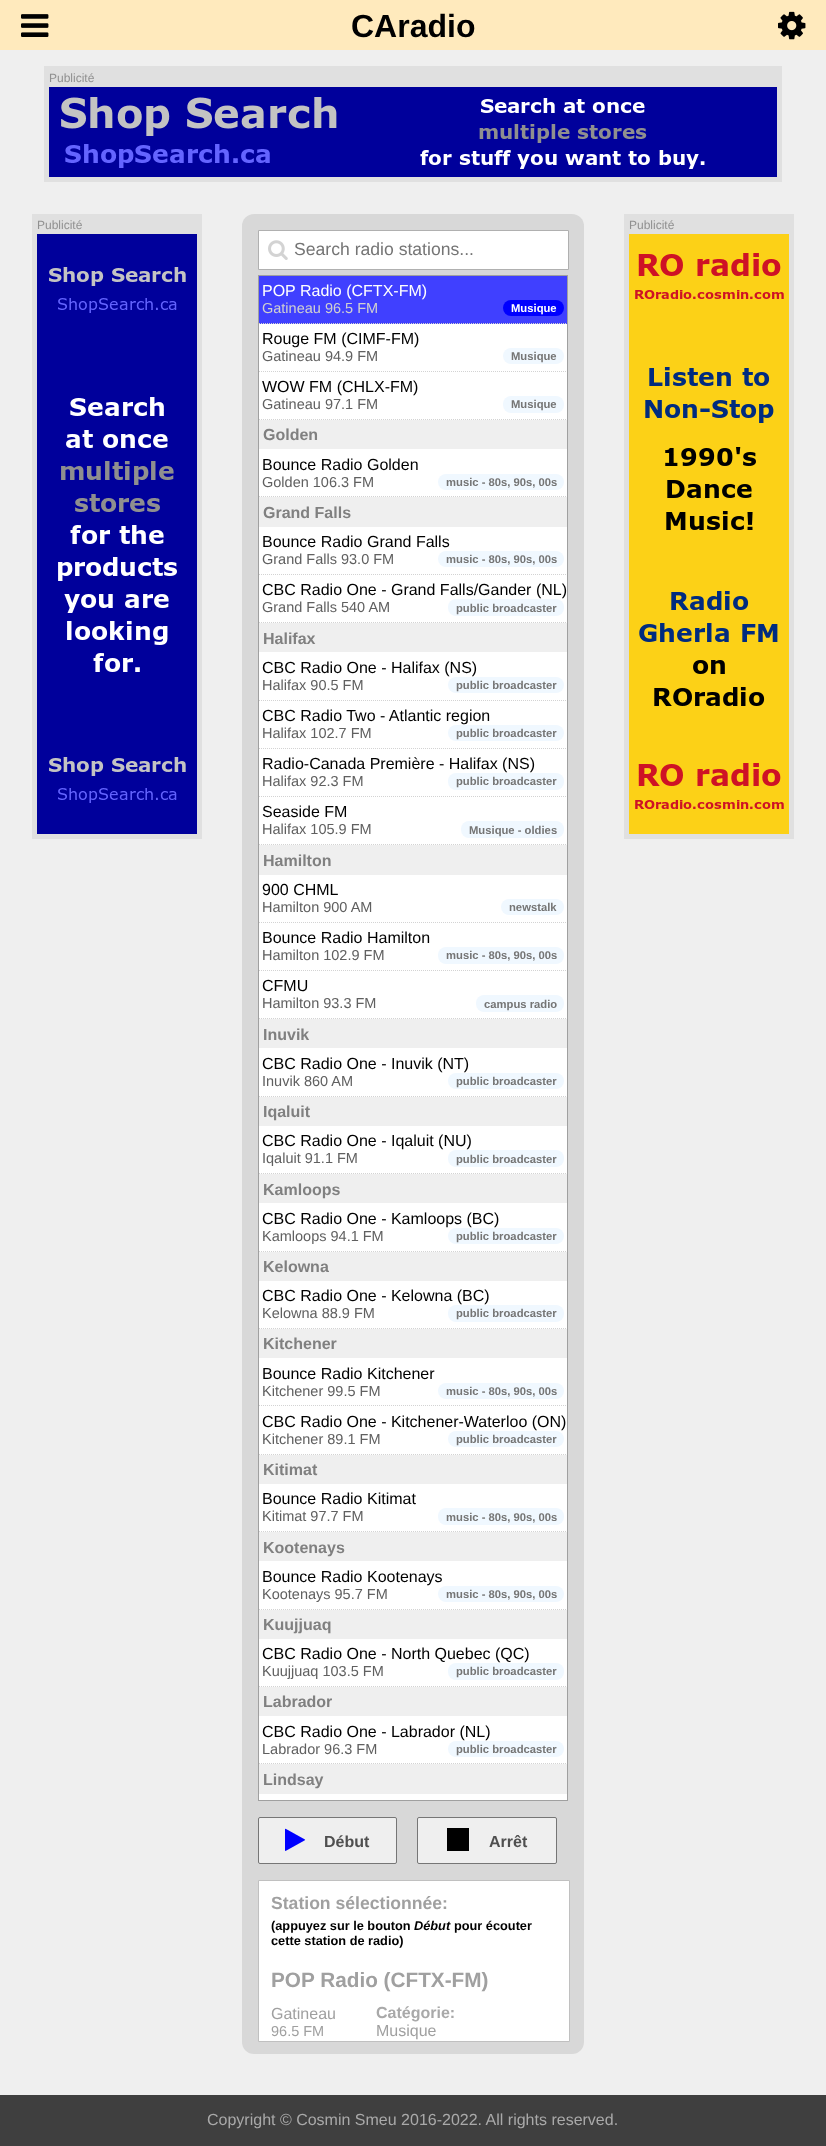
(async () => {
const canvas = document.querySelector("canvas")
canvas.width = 826
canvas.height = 2146
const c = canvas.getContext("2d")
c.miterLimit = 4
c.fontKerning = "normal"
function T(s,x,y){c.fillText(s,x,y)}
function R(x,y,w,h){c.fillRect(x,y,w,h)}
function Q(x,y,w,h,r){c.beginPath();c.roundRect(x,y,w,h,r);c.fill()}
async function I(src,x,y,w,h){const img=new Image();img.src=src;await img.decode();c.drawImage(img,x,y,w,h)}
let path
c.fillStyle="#3f3f3f"
R(0,0,826,2146)
c.fillStyle="#efefef"
R(0,50,826,2045)
c.fillStyle="#ffeabd"
R(0,0,826,50)
await I("1.png",21,14,28,23)
c.font="bold 32px Liberation Sans"
c.fillStyle="#000"
T("CAradio",351,37)
await I("2.png",778,11,28,29)
c.fillStyle="#e0e0e0"
R(44,66,738,116)
c.font="12px Liberation Sans"
c.fillStyle="#909090"
T("Publicité",49,82)
await I("3.png",49,87,728,90)
c.fillStyle="#e0e0e0"
R(32,214,170,625)
c.fillStyle="#909090"
T("Publicité",37,229)
await I("4.png",37,234,160,600)
c.fillStyle="#e0e0e0"
R(624,214,170,625)
c.fillStyle="#909090"
T("Publicité",629,229)
await I("5.png",629,234,160,600)
c.fillStyle="#d8d8d8"
Q(242,214,342,1840,12)
c.fillStyle="#fff"
c.beginPath()
c.rect(258.5,230.5,310,39)
c.fill()
c.strokeStyle="#b0b0b0"
c.stroke()
await I("6.png",268,240,20,20)
c.font="17.6px Liberation Sans"
c.fillStyle="#757575"
T("Search radio stations...",294,255)
c.fillStyle="#fff"
R(259,324,308,1476)
c.strokeStyle="#a0a0a0"
c.strokeRect(258.5,275.5,309,1525)
c.fillStyle="#4040ff"
R(259,276,308,48)
path = new Path2D("M259 323.5h308")
c.strokeStyle="#d3d3d3"
c.setLineDash([1,1])
c.stroke(path)
c.font="16px Liberation Sans"
c.fillStyle="#fff"
T("POP Radio (CFTX-FM)",262,296)
c.font="14.5px Liberation Sans"
c.fillStyle="#d0d0d0"
T("Gatineau 96.5 FM",262,313)
c.fillStyle="#00f"
Q(503,300,61,16,8)
c.font="bold 11.25px Liberation Sans"
c.fillStyle="#fff"
T("Musique",511,312)
path = new Path2D("M259 371.5h308")
c.stroke(path)
c.font="16px Liberation Sans"
c.fillStyle="#000"
T("Rouge FM (CIMF-FM)",262,344)
c.font="14.5px Liberation Sans"
c.fillStyle="#606060"
T("Gatineau 94.9 FM",262,361)
c.fillStyle="#f0f8ff"
Q(503,348,61,16,8)
c.font="bold 11.25px Liberation Sans"
c.fillStyle="#757575"
T("Musique",511,360)
path = new Path2D("M259 419.5h308")
c.stroke(path)
c.font="16px Liberation Sans"
c.fillStyle="#000"
T("WOW FM (CHLX-FM)",262,392)
c.font="14.5px Liberation Sans"
c.fillStyle="#606060"
T("Gatineau 97.1 FM",262,409)
c.fillStyle="#f0f8ff"
Q(503,396,61,17,8)
c.font="bold 11.25px Liberation Sans"
c.fillStyle="#757575"
T("Musique",511,408)
c.fillStyle="#efefef"
R(259,420,308,29)
c.font="bold 16px Liberation Sans"
c.fillStyle="#808080"
T("Golden",263,440)
path = new Path2D("M259 496.5h308")
c.stroke(path)
c.font="16px Liberation Sans"
c.fillStyle="#000"
T("Bounce Radio Golden",262,470)
c.font="14.5px Liberation Sans"
c.fillStyle="#606060"
T("Golden 106.3 FM",262,487)
c.fillStyle="#f0f8ff"
Q(438,474,126,16,8)
c.font="bold 11.25px Liberation Sans"
c.fillStyle="#757575"
T("music - 80s, 90s, 00s",446,486)
c.fillStyle="#efefef"
R(259,497,308,30)
c.font="bold 16px Liberation Sans"
c.fillStyle="#808080"
T("Grand Falls",263,518)
path = new Path2D("M259 574.5h308")
c.stroke(path)
c.font="16px Liberation Sans"
c.fillStyle="#000"
T("Bounce Radio Grand Falls",262,547)
c.font="14.5px Liberation Sans"
c.fillStyle="#606060"
T("Grand Falls 93.0 FM",262,564)
c.fillStyle="#f0f8ff"
Q(438,551,126,16,8)
c.font="bold 11.25px Liberation Sans"
c.fillStyle="#757575"
T("music - 80s, 90s, 00s",446,563)
path = new Path2D("M259 622.5h308")
c.stroke(path)
c.font="16px Liberation Sans"
c.fillStyle="#000"
T("CBC Radio One - Grand Falls/Gander (NL)",262,595)
c.font="14.5px Liberation Sans"
c.fillStyle="#606060"
T("Grand Falls 540 AM",262,612)
c.fillStyle="#f0f8ff"
Q(448,599,116,17,8)
c.font="bold 11.25px Liberation Sans"
c.fillStyle="#757575"
T("public broadcaster",456,612)
c.fillStyle="#efefef"
R(259,623,308,29)
c.font="bold 16px Liberation Sans"
c.fillStyle="#808080"
T("Halifax",263,644)
path = new Path2D("M259 700.5h308")
c.stroke(path)
c.font="16px Liberation Sans"
c.fillStyle="#000"
T("CBC Radio One - Halifax (NS)",262,673)
c.font="14.5px Liberation Sans"
c.fillStyle="#606060"
T("Halifax 90.5 FM",262,690)
c.fillStyle="#f0f8ff"
Q(448,677,116,16,8)
c.font="bold 11.25px Liberation Sans"
c.fillStyle="#757575"
T("public broadcaster",456,689)
path = new Path2D("M259 748.5h308")
c.stroke(path)
c.font="16px Liberation Sans"
c.fillStyle="#000"
T("CBC Radio Two - Atlantic region",262,721)
c.font="14.5px Liberation Sans"
c.fillStyle="#606060"
T("Halifax 102.7 FM",262,738)
c.fillStyle="#f0f8ff"
Q(448,725,116,16,8)
c.font="bold 11.25px Liberation Sans"
c.fillStyle="#757575"
T("public broadcaster",456,737)
path = new Path2D("M259 796.5h308")
c.stroke(path)
c.font="16px Liberation Sans"
c.fillStyle="#000"
T("Radio-Canada Première - Halifax (NS)",262,769)
c.font="14.5px Liberation Sans"
c.fillStyle="#606060"
T("Halifax 92.3 FM",262,786)
c.fillStyle="#f0f8ff"
Q(448,773,116,17,8)
c.font="bold 11.25px Liberation Sans"
c.fillStyle="#757575"
T("public broadcaster",456,785)
path = new Path2D("M259 844.5h308")
c.stroke(path)
c.font="16px Liberation Sans"
c.fillStyle="#000"
T("Seaside FM",262,817)
c.font="14.5px Liberation Sans"
c.fillStyle="#606060"
T("Halifax 105.9 FM",262,834)
c.fillStyle="#f0f8ff"
Q(461,821,103,17,8)
c.font="bold 11.25px Liberation Sans"
c.fillStyle="#757575"
T("Musique - oldies",469,834)
c.fillStyle="#efefef"
R(259,845,308,30)
c.font="bold 16px Liberation Sans"
c.fillStyle="#808080"
T("Hamilton",263,866)
path = new Path2D("M259 922.5h308")
c.stroke(path)
c.font="16px Liberation Sans"
c.fillStyle="#000"
T("900 CHML",262,895)
c.font="14.5px Liberation Sans"
c.fillStyle="#606060"
T("Hamilton 900 AM",262,912)
c.fillStyle="#f0f8ff"
Q(501,899,63,16,8)
c.font="bold 11.25px Liberation Sans"
c.fillStyle="#757575"
T("newstalk",509,911)
path = new Path2D("M259 970.5h308")
c.stroke(path)
c.font="16px Liberation Sans"
c.fillStyle="#000"
T("Bounce Radio Hamilton",262,943)
c.font="14.5px Liberation Sans"
c.fillStyle="#606060"
T("Hamilton 102.9 FM",262,960)
c.fillStyle="#f0f8ff"
Q(438,947,126,17,8)
c.font="bold 11.25px Liberation Sans"
c.fillStyle="#757575"
T("music - 80s, 90s, 00s",446,959)
path = new Path2D("M259 1018.5h308")
c.stroke(path)
c.font="16px Liberation Sans"
c.fillStyle="#000"
T("CFMU",262,991)
c.font="14.5px Liberation Sans"
c.fillStyle="#606060"
T("Hamilton 93.3 FM",262,1008)
c.fillStyle="#f0f8ff"
Q(476,995,88,17,8)
c.font="bold 11.25px Liberation Sans"
c.fillStyle="#757575"
T("campus radio",484,1008)
c.fillStyle="#efefef"
R(259,1019,308,29)
c.font="bold 16px Liberation Sans"
c.fillStyle="#808080"
T("Inuvik",263,1040)
path = new Path2D("M259 1096.5h308")
c.stroke(path)
c.font="16px Liberation Sans"
c.fillStyle="#000"
T("CBC Radio One - Inuvik (NT)",262,1069)
c.font="14.5px Liberation Sans"
c.fillStyle="#606060"
T("Inuvik 860 AM",262,1086)
c.fillStyle="#f0f8ff"
Q(448,1073,116,16,8)
c.font="bold 11.25px Liberation Sans"
c.fillStyle="#757575"
T("public broadcaster",456,1085)
c.fillStyle="#efefef"
R(259,1097,308,29)
c.font="bold 16px Liberation Sans"
c.fillStyle="#808080"
T("Iqaluit",263,1117)
path = new Path2D("M259 1173.5h308")
c.stroke(path)
c.font="16px Liberation Sans"
c.fillStyle="#000"
T("CBC Radio One - Iqaluit (NU)",262,1146)
c.font="14.5px Liberation Sans"
c.fillStyle="#606060"
T("Iqaluit 91.1 FM",262,1163)
c.fillStyle="#f0f8ff"
Q(448,1150,116,17,8)
c.font="bold 11.25px Liberation Sans"
c.fillStyle="#757575"
T("public broadcaster",456,1163)
c.fillStyle="#efefef"
R(259,1174,308,29)
c.font="bold 16px Liberation Sans"
c.fillStyle="#808080"
T("Kamloops",263,1195)
path = new Path2D("M259 1251.5h308")
c.stroke(path)
c.font="16px Liberation Sans"
c.fillStyle="#000"
T("CBC Radio One - Kamloops (BC)",262,1224)
c.font="14.5px Liberation Sans"
c.fillStyle="#606060"
T("Kamloops 94.1 FM",262,1241)
c.fillStyle="#f0f8ff"
Q(448,1228,116,16,8)
c.font="bold 11.25px Liberation Sans"
c.fillStyle="#757575"
T("public broadcaster",456,1240)
c.fillStyle="#efefef"
R(259,1252,308,29)
c.font="bold 16px Liberation Sans"
c.fillStyle="#808080"
T("Kelowna",263,1272)
path = new Path2D("M259 1328.5h308")
c.stroke(path)
c.font="16px Liberation Sans"
c.fillStyle="#000"
T("CBC Radio One - Kelowna (BC)",262,1301)
c.font="14.5px Liberation Sans"
c.fillStyle="#606060"
T("Kelowna 88.9 FM",262,1318)
c.fillStyle="#f0f8ff"
Q(448,1305,116,17,8)
c.font="bold 11.25px Liberation Sans"
c.fillStyle="#757575"
T("public broadcaster",456,1317)
c.fillStyle="#efefef"
R(259,1329,308,29)
c.font="bold 16px Liberation Sans"
c.fillStyle="#808080"
T("Kitchener",263,1349)
path = new Path2D("M259 1405.5h308")
c.stroke(path)
c.font="16px Liberation Sans"
c.fillStyle="#000"
T("Bounce Radio Kitchener",262,1379)
c.font="14.5px Liberation Sans"
c.fillStyle="#606060"
T("Kitchener 99.5 FM",262,1396)
c.fillStyle="#f0f8ff"
Q(438,1383,126,16,8)
c.font="bold 11.25px Liberation Sans"
c.fillStyle="#757575"
T("music - 80s, 90s, 00s",446,1395)
path = new Path2D("M259 1454.5h308")
c.stroke(path)
c.font="16px Liberation Sans"
c.fillStyle="#000"
T("CBC Radio One - Kitchener-Waterloo (ON)",262,1427)
c.font="14.5px Liberation Sans"
c.fillStyle="#606060"
T("Kitchener 89.1 FM",262,1444)
c.fillStyle="#f0f8ff"
Q(448,1431,116,16,8)
c.font="bold 11.25px Liberation Sans"
c.fillStyle="#757575"
T("public broadcaster",456,1443)
c.fillStyle="#efefef"
R(259,1455,308,29)
c.font="bold 16px Liberation Sans"
c.fillStyle="#808080"
T("Kitimat",263,1475)
path = new Path2D("M259 1531.5h308")
c.stroke(path)
c.font="16px Liberation Sans"
c.fillStyle="#000"
T("Bounce Radio Kitimat",262,1504)
c.font="14.5px Liberation Sans"
c.fillStyle="#606060"
T("Kitimat 97.7 FM",262,1521)
c.fillStyle="#f0f8ff"
Q(438,1508,126,17,8)
c.font="bold 11.25px Liberation Sans"
c.fillStyle="#757575"
T("music - 80s, 90s, 00s",446,1521)
c.fillStyle="#efefef"
R(259,1532,308,29)
c.font="bold 16px Liberation Sans"
c.fillStyle="#808080"
T("Kootenays",263,1553)
path = new Path2D("M259 1609.5h308")
c.stroke(path)
c.font="16px Liberation Sans"
c.fillStyle="#000"
T("Bounce Radio Kootenays",262,1582)
c.font="14.5px Liberation Sans"
c.fillStyle="#606060"
T("Kootenays 95.7 FM",262,1599)
c.fillStyle="#f0f8ff"
Q(438,1586,126,16,8)
c.font="bold 11.25px Liberation Sans"
c.fillStyle="#757575"
T("music - 80s, 90s, 00s",446,1598)
c.fillStyle="#efefef"
R(259,1610,308,29)
c.font="bold 16px Liberation Sans"
c.fillStyle="#808080"
T("Kuujjuaq",263,1630)
path = new Path2D("M259 1686.5h308")
c.stroke(path)
c.font="16px Liberation Sans"
c.fillStyle="#000"
T("CBC Radio One - North Quebec (QC)",262,1659)
c.font="14.5px Liberation Sans"
c.fillStyle="#606060"
T("Kuujjuaq 103.5 FM",262,1676)
c.fillStyle="#f0f8ff"
Q(448,1663,116,17,8)
c.font="bold 11.25px Liberation Sans"
c.fillStyle="#757575"
T("public broadcaster",456,1675)
c.fillStyle="#efefef"
R(259,1687,308,29)
c.font="bold 16px Liberation Sans"
c.fillStyle="#808080"
T("Labrador",263,1707)
path = new Path2D("M259 1763.5h308")
c.stroke(path)
c.font="16px Liberation Sans"
c.fillStyle="#000"
T("CBC Radio One - Labrador (NL)",262,1737)
c.font="14.5px Liberation Sans"
c.fillStyle="#606060"
T("Labrador 96.3 FM",262,1754)
c.fillStyle="#f0f8ff"
Q(448,1741,116,16,8)
c.font="bold 11.25px Liberation Sans"
c.fillStyle="#757575"
T("public broadcaster",456,1753)
c.fillStyle="#efefef"
R(259,1764,308,30)
c.font="bold 16px Liberation Sans"
c.fillStyle="#808080"
T("Lindsay",263,1785)
c.fillStyle="#efefef"
c.beginPath()
c.roundRect(258.5,1817.5,138,46,1.5)
c.fill()
c.strokeStyle="#767676"
c.setLineDash([])
c.stroke()
await I("7.png",285,1828,21,23)
c.fillStyle="#4f4f4f"
T("Début",324,1847)
c.fillStyle="#efefef"
c.beginPath()
c.roundRect(417.5,1817.5,139,46,1.5)
c.fill()
c.stroke()
c.fillStyle="#000"
R(447,1828,22,23)
c.fillStyle="#4f4f4f"
T("Arrêt",489,1847)
c.fillStyle="#fff"
c.beginPath()
c.rect(258.5,1880.5,311,161)
c.fill()
c.strokeStyle="#c0c0c0"
c.stroke()
c.font="bold 17.6px Liberation Sans"
c.fillStyle="#a0a0a0"
T("Station sélectionnée:",271,1909)
c.font="bold 12.75px Liberation Sans"
c.fillStyle="#000"
T("(appuyez sur le bouton",271,1930)
c.font="italic bold 12.75px Liberation Sans"
T("Début",414,1930)
c.font="bold 12.75px Liberation Sans"
T("pour écouter",454,1930)
T("cette station de radio)",271,1945)
c.font="bold 20.75px Liberation Sans"
c.fillStyle="#a0a0a0"
T("POP Radio (CFTX-FM)",271,1987)
c.font="16px Liberation Sans"
T("Gatineau",271,2019)
c.font="14.5px Liberation Sans"
T("96.5 FM",271,2036)
c.font="bold 16px Liberation Sans"
c.fillStyle="#a9a9a9"
T("Catégorie:",376,2018)
c.font="16px Liberation Sans"
c.fillStyle="#a0a0a0"
T("Musique",376,2036)
c.fillStyle="#a9a9a9"
T("Copyright © Cosmin Smeu 2016-2022. All rights reserved.",207,2125)
})()
